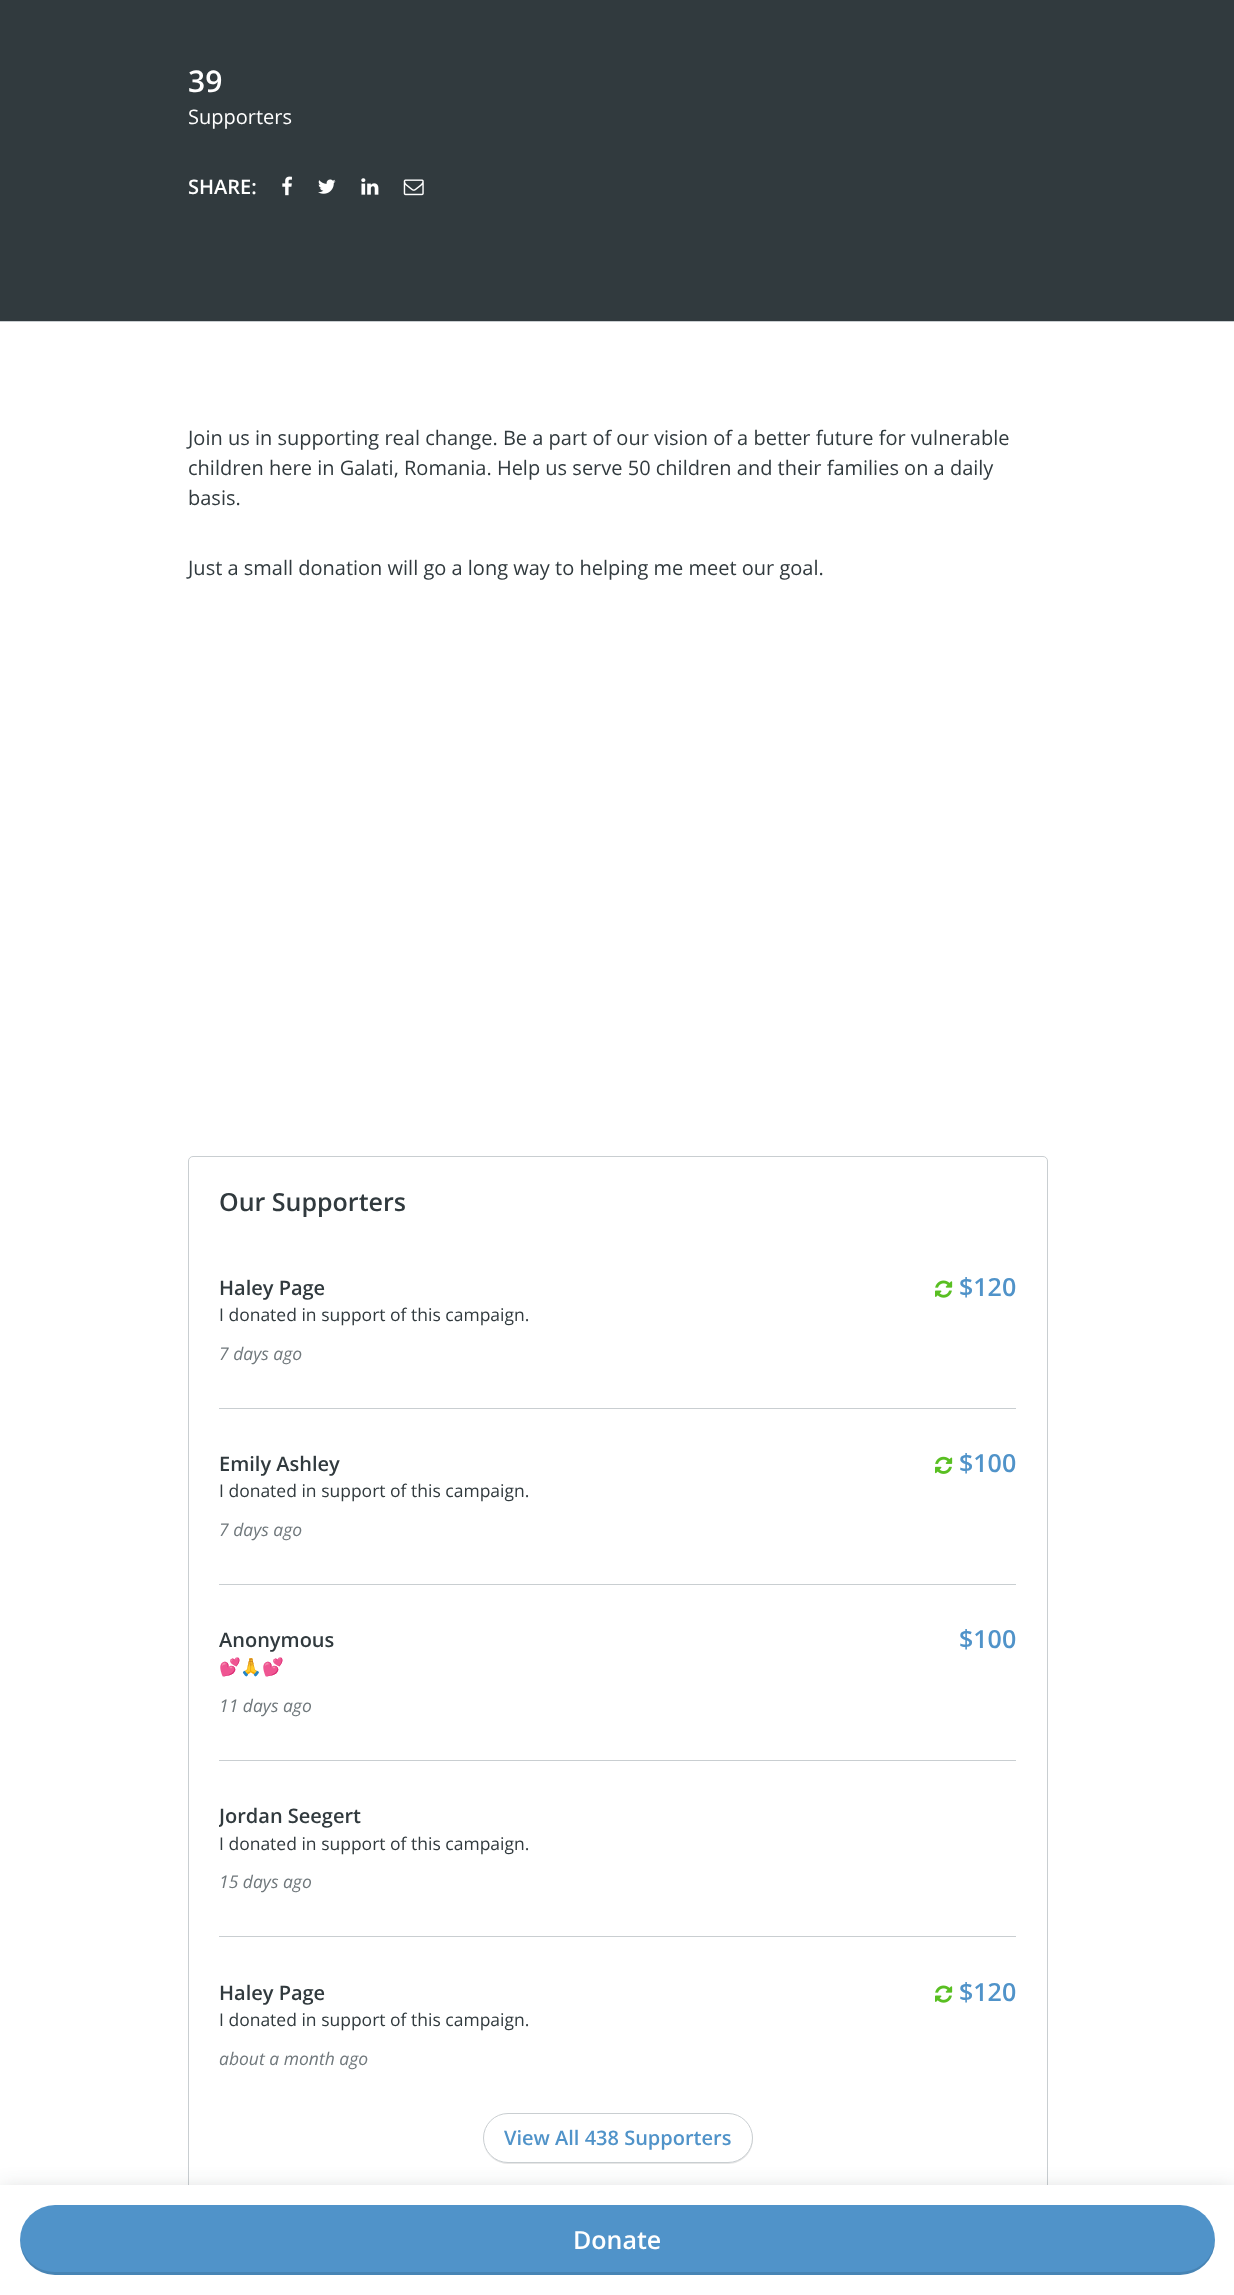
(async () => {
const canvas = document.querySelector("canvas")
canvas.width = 1234
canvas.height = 2295
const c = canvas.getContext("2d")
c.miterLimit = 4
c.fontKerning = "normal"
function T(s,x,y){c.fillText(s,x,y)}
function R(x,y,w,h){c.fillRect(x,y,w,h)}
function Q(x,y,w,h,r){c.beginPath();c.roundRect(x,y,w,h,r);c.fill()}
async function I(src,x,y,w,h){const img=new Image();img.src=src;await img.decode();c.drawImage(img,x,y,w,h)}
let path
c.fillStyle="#fff"
R(0,0,1234,2295)
c.fillStyle="#313a3e"
R(0,0,1234,321)
c.font="600 30px Open Sans"
c.fillStyle="#fff"
T("39",188,92)
c.font="20px Open Sans"
T("Supporters",188,124)
c.font="600 20px Open Sans"
T("SHARE:",188,194)
await I("1.png",282,176,10,20)
await I("2.png",318,179,18,15)
await I("3.png",361,178,18,17)
await I("4.png",403,179,21,17)
c.beginPath()
c.roundRect(188.5,1156.5,859,1037,4.5)
c.strokeStyle="#c9ced1"
c.stroke()
c.fillStyle="#e6e6e6"
path = new Path2D("M484 2146c3 10 13 18 24 18h220c14 0 25-11 25-25c0-3-1-6-2-9c1 3 1 5 1 8c0 13-11 24-24 24h-220c-11 0-20-6-24-16z")
c.fill(path)
c.fillStyle="#fff"
c.beginPath()
c.roundRect(483.5,2113.5,269,49,24.5)
c.fill()
c.stroke()
c.fillStyle="#1d262b33"
c.filter="blur(11px)"
c.beginPath()
c.rect(0,2190,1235,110)
c.fill()
c.filter="none"
c.fillStyle="#fff"
R(0,2185,1234,110)
c.fillStyle="#5093c9"
Q(20,2205,1195,70,35)
c.fillStyle="#0000001a"
path = new Path2D("M20 2239c0 14 8 28 21 33c5 2 9 3 14 3h1125c19 0 36-17 35-36c-1 19-16 33-35 33h-1125c-19 0-34-14-35-33z")
c.fill(path)
c.font="600 25px Open Sans"
c.fillStyle="#fff"
T("Donate",573,2249)
c.fillStyle="#c9ced1"
R(0,321,1234,1)
c.font="20px Open Sans"
c.fillStyle="#313a3e"
T("Join us in supporting real change. Be a part of our vision of a better future for vulnerable",188,445)
T("children here in Galati, Romania. Help us serve 50 children and their families on a daily",188,475)
T("basis.",188,505)
T("Just a small donation will go a long way to helping me meet our goal.",188,575)
c.font="600 25px Open Sans"
T("Our Supporters",219,1211)
c.font="600 20px Open Sans"
T("Haley Page",219,1295)
await I("5.png",935,1280,18,18)
c.font="600 25px Open Sans"
c.fillStyle="#5093c9"
T("$120",959,1296)
c.font="17.5px Open Sans"
c.fillStyle="#313a3e"
T("I donated in support of this campaign.",219,1321)
c.font="italic 17.5px Open Sans"
c.fillStyle="#70787c"
T("7 days ago",219,1360)
c.fillStyle="#c9ced1"
R(219,1408,797,1)
c.font="600 20px Open Sans"
c.fillStyle="#313a3e"
T("Emily Ashley",219,1471)
await I("6.png",935,1456,18,18)
c.font="600 25px Open Sans"
c.fillStyle="#5093c9"
T("$100",959,1472)
c.font="17.5px Open Sans"
c.fillStyle="#313a3e"
T("I donated in support of this campaign.",219,1497)
c.font="italic 17.5px Open Sans"
c.fillStyle="#70787c"
T("7 days ago",219,1536)
c.fillStyle="#c9ced1"
R(219,1584,797,1)
c.font="600 20px Open Sans"
c.fillStyle="#313a3e"
T("Anonymous",219,1647)
c.font="600 25px Open Sans"
c.fillStyle="#5093c9"
T("$100",959,1648)
c.save()
c.beginPath()
c.rect(219,1233,797,880)
c.clip()
c.font="17.5px Noto Color Emoji"
c.fillStyle="#313a3e"
T("💕🙏💕",219,1673)
c.restore()
c.font="italic 17.5px Open Sans"
c.fillStyle="#70787c"
T("11 days ago",219,1712)
c.fillStyle="#c9ced1"
R(219,1760,797,1)
c.save()
c.beginPath()
c.rect(219,1233,797,880)
c.clip()
c.font="600 20px Open Sans"
c.fillStyle="#313a3e"
T("Jordan Seegert",219,1823)
c.restore()
c.font="17.5px Open Sans"
c.fillStyle="#313a3e"
T("I donated in support of this campaign.",219,1850)
c.font="italic 17.5px Open Sans"
c.fillStyle="#70787c"
T("15 days ago",219,1888)
c.fillStyle="#c9ced1"
R(219,1936,797,1)
c.font="600 20px Open Sans"
c.fillStyle="#313a3e"
T("Haley Page",219,2000)
await I("5.png",935,1985,18,18)
c.font="600 25px Open Sans"
c.fillStyle="#5093c9"
T("$120",959,2001)
c.font="17.5px Open Sans"
c.fillStyle="#313a3e"
T("I donated in support of this campaign.",219,2026)
c.font="italic 17.5px Open Sans"
c.fillStyle="#70787c"
T("about a month ago",219,2065)
c.font="600 20px Open Sans"
c.fillStyle="#5093c9"
T("View All 438 Supporters",504,2145)
})()
